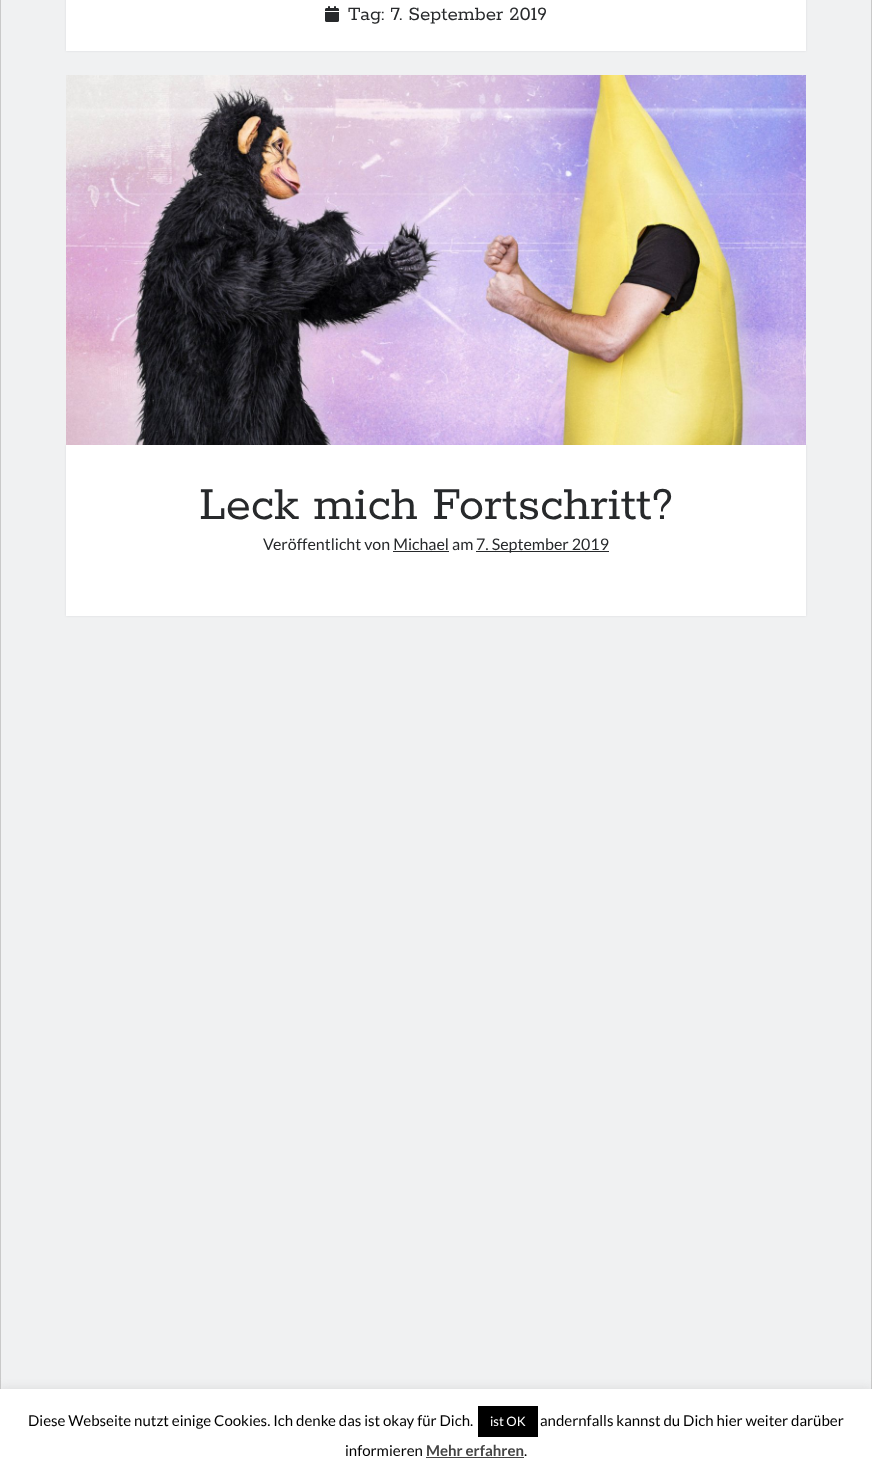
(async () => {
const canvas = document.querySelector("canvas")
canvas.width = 872
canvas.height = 1473
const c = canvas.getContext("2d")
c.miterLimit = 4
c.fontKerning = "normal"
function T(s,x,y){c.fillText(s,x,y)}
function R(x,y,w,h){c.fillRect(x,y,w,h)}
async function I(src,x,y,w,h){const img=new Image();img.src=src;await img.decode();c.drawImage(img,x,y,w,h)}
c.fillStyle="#f0f1f2"
R(0,0,872,1473)
c.fillStyle="#c9c9c9"
R(871,0,1,1389)
R(0,0,1,1389)
c.fillStyle="#272b2f1a"
c.filter="blur(1px)"
c.beginPath()
c.rect(66,-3,740,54)
c.fill()
c.filter="none"
c.fillStyle="#fff"
R(66,0,740,51)
await I("1.png",325,6,14,16)
c.font="21px Rokkitt"
c.fillStyle="#27292b"
T("Tag: 7. September 2019",348,20)
c.fillStyle="#272b2f1a"
c.filter="blur(1px)"
c.beginPath()
c.rect(66,445,740,171)
c.fill()
c.filter="none"
await I("2.png",66,75,740,370)
c.fillStyle="#fff"
R(66,445,740,171)
c.font="51px Rokkitt"
c.fillStyle="#27292b"
T("Leck mich Fortschritt?",199,519)
c.font="16px Lato"
T("Veröffentlicht von Michael am",263,550)
R(393,551,56,1)
R(476,551,133,1)
T("7. September 2019",476,550)
c.fillStyle="#acabab4d"
c.filter="blur(5px)"
c.beginPath()
c.rect(0,1388,872,84)
c.fill()
c.filter="none"
c.fillStyle="#fff"
R(0,1389,872,84)
c.font="15px Lato"
c.fillStyle="#000"
T("Diese Webseite nutzt einige Cookies. Ich denke das ist okay für Dich.",28,1426)
R(478,1406,60,31)
c.font="13px Lato"
c.fillStyle="#fff"
T("ist OK",490,1426)
c.font="15px Lato"
c.fillStyle="#000"
T("andernfalls kannst du Dich hier weiter darüber",540,1426)
T("informieren",345,1456)
c.font="bold 15px Lato"
c.fillStyle="#444"
T("Mehr erfahren",426,1456)
R(426,1457,98,1)
c.font="15px Lato"
c.fillStyle="#000"
T(".",524,1456)
})()
